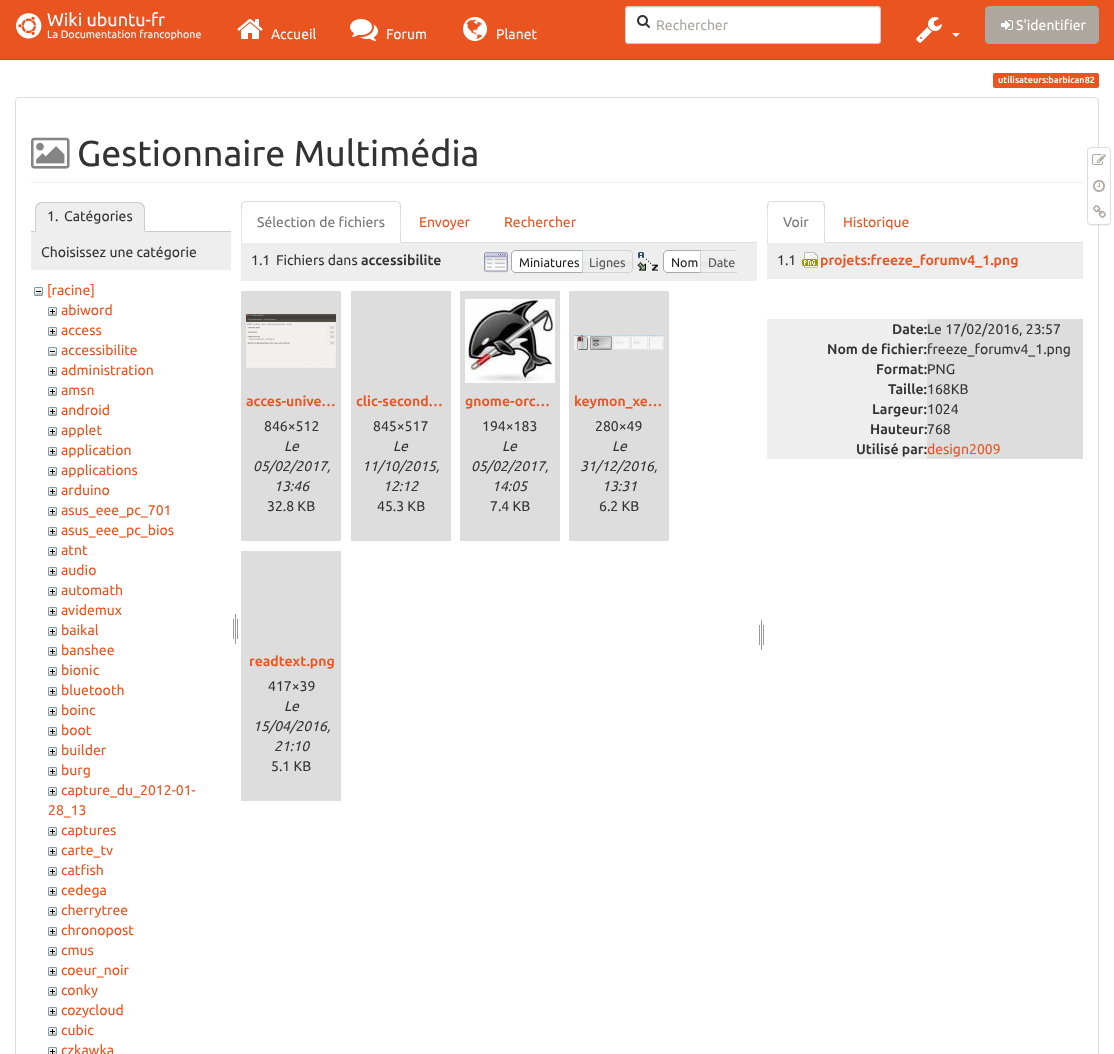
(async () => {
const canvas = document.querySelector("canvas")
canvas.width = 1114
canvas.height = 1054
const c = canvas.getContext("2d")
c.miterLimit = 4
c.fontKerning = "normal"
function T(s,x,y){c.fillText(s,x,y)}
function R(x,y,w,h){c.fillRect(x,y,w,h)}
function Q(x,y,w,h,r){c.beginPath();c.roundRect(x,y,w,h,r);c.fill()}
async function I(src,x,y,w,h){const img=new Image();img.src=src;await img.decode();c.drawImage(img,x,y,w,h)}
let path
c.fillStyle="#fff"
R(0,0,1114,1054)
c.fillStyle="#e95420"
R(0,0,1114,59)
c.fillStyle="#d34615"
R(0,59,1114,1)
await I("1.png",16,13,26,26)
c.font="18px Ubuntu"
c.fillStyle="#fff"
T("Wiki ubuntu-fr",47,26)
c.font="10.75px Ubuntu"
T("La Documentation francophone",47,38)
Q(625,6,256,38,4)
c.fillStyle="#ececec"
path = new Path2D("M629 8h249l2 1v2c0-2-1-4-3-4h-248c-2 0-3 2-3 4c0-2 1-3 3-3z")
c.fill(path)
c.beginPath()
c.roundRect(625.5,6.5,255,37,3.5)
c.strokeStyle="#ccc"
c.stroke()
await I("2.png",637,15,13,13)
c.font="14px Ubuntu"
c.fillStyle="#aea79f"
T("Rechercher",656,30)
await I("3.png",916,17,26,26)
c.fillStyle="#fff"
path = new Path2D("M952 33h8l-4 4z")
c.fill(path)
c.fillStyle="#aea79f"
c.beginPath()
c.roundRect(985.5,6.5,113,37,3.5)
c.fill()
c.strokeStyle="#aea79f"
c.stroke()
await I("4.png",1001,20,12,10)
c.fillStyle="#fff"
T("S'identifier",1016,30)
await I("5.png",237,19,26,20)
T("Accueil",271,39)
await I("6.png",350,19,28,22)
T("Forum",386,39)
await I("7.png",463,17,24,24)
T("Planet",496,39)
c.fillStyle="#e95420"
Q(993,73,106,15,2)
c.font="bold 9px Ubuntu"
c.fillStyle="#fff"
T("utilisateurs:barbican82",998,83)
c.beginPath()
c.roundRect(15.5,97.5,1083,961,3.5)
c.strokeStyle="#ddd"
c.stroke()
c.fillStyle="#eee"
R(31,182,1052,1)
await I("8.png",31,137,39,32)
c.font="36px Ubuntu"
c.fillStyle="#333"
T("Gestionnaire Multimédia",77,166)
c.fillStyle="#ccc"
R(31,231,200,1)
c.fillStyle="#eee"
c.beginPath()
c.roundRect(35,202,110,30,[7,7,0,0])
c.fill()
c.fillStyle="#ccc"
path = new Path2D("M42 202c-2 0-4 1-5 2l1 1l3-2h98l3 2l1-1c-1-1-3-2-5-2z")
c.fill(path)
path = new Path2D("M145 232v-23c0-2-1-4-2-5l-1 1c1 1 2 2.5 2 4v22z")
c.fill(path)
c.fillStyle="#eee"
path = new Path2D("M145 232l-1-1h-108l-1 1z")
c.fill(path)
c.fillStyle="#ccc"
path = new Path2D("M35 232l1-1v-22c0-1.5 1-3 2-4l-1-1c-1 1-2 3-2 5z")
c.fill(path)
c.font="14px Ubuntu"
c.fillStyle="#333"
T("1.",47,221)
T("Catégories",64,221)
c.fillStyle="#eee"
R(31,232,200,38)
c.fillStyle="#333"
T("Choisissez une catégorie",41,257)
await I("9.png",34,287,9,9)
c.fillStyle="#e95420"
T("[racine]",47,295)
await I("10.png",48,307,9,9)
T("abiword",61,315)
await I("10.png",48,327,9,9)
T("access",61,335)
await I("9.png",48,347,9,9)
T("accessibilite",61,355)
await I("10.png",48,367,9,9)
T("administration",61,375)
await I("10.png",48,387,9,9)
T("amsn",61,395)
await I("10.png",48,407,9,9)
T("android",61,415)
await I("10.png",48,427,9,9)
T("applet",61,435)
await I("10.png",48,447,9,9)
T("application",61,455)
await I("10.png",48,467,9,9)
T("applications",61,475)
await I("10.png",48,487,9,9)
T("arduino",61,495)
await I("10.png",48,507,9,9)
T("asus_eee_pc_701",61,515)
await I("10.png",48,527,9,9)
T("asus_eee_pc_bios",61,535)
await I("10.png",48,547,9,9)
T("atnt",61,555)
await I("10.png",48,567,9,9)
T("audio",61,575)
await I("10.png",48,587,9,9)
T("automath",61,595)
await I("10.png",48,607,9,9)
T("avidemux",61,615)
await I("10.png",48,627,9,9)
T("baikal",61,635)
await I("10.png",48,647,9,9)
T("banshee",61,655)
await I("10.png",48,667,9,9)
T("bionic",61,675)
await I("10.png",48,687,9,9)
T("bluetooth",61,695)
await I("10.png",48,707,9,9)
T("boinc",61,715)
await I("10.png",48,727,9,9)
T("boot",61,735)
await I("10.png",48,747,9,9)
T("builder",61,755)
await I("10.png",48,767,9,9)
T("burg",61,775)
await I("10.png",48,787,9,9)
T("capture_du_2012-01-",61,795)
T("28_13",48,815)
await I("10.png",48,827,9,9)
T("captures",61,835)
await I("10.png",48,847,9,9)
T("carte_tv",61,855)
await I("10.png",48,867,9,9)
T("catfish",61,875)
await I("10.png",48,887,9,9)
T("cedega",61,895)
await I("10.png",48,907,9,9)
T("cherrytree",61,915)
await I("10.png",48,927,9,9)
T("chronopost",61,935)
await I("10.png",48,947,9,9)
T("cmus",61,955)
await I("10.png",48,967,9,9)
T("coeur_noir",61,975)
await I("10.png",48,987,9,9)
T("conky",61,995)
await I("10.png",48,1007,9,9)
T("cozycloud",61,1015)
await I("10.png",48,1027,9,9)
T("cubic",61,1035)
await I("11.png",48,1047,9,7)
T("czkawka",61,1055)
await I("12.png",233,613,5,31)
c.fillStyle="#ddd"
R(401,242,356,1)
path = new Path2D("M245 201l-3 1l1 1l2-1h152l2 1l1-1l-3-1z")
c.fill(path)
path = new Path2D("M401 243v-38c0-1-1-2-1-3l-1 1c2 2 1 34 1 39z")
c.fill(path)
path = new Path2D("M241 243l1-1c0-5-1-37 1-39l-1-1l-1 3z")
c.fill(path)
c.fillStyle="#777"
T("Sélection de fichiers",257,227)
c.fillStyle="#e95420"
T("Envoyer",419,227)
T("Rechercher",504,227)
c.fillStyle="#eee"
R(241,243,516,38)
c.fillStyle="#333"
T("1.1",251,265)
T("Fichiers dans",276,265)
c.font="bold 14px Ubuntu"
T("accessibilite",361,265)
await I("13.png",484,252,24,21)
c.fillStyle="#fff"
R(511,250,71,23)
c.beginPath()
c.roundRect(511.5,250.5,75,22,[3.5,0,0,3.5])
c.strokeStyle="#aaa"
c.stroke()
c.font="12.5px Ubuntu"
c.fillStyle="#212121"
T("Miniatures",519,267)
await I("14.png",583,250,50,23)
c.beginPath()
c.roundRect(582.5,250.5,50,22,[0,3.5,3.5,0])
c.strokeStyle="#d3d3d3"
c.stroke()
c.fillStyle="#555"
T("Lignes",589,267)
await I("15.png",637,252,21,19)
c.fillStyle="#fff"
R(663,250,37,23)
c.beginPath()
c.roundRect(663.5,250.5,42,22,[3.5,0,0,3.5])
c.strokeStyle="#aaa"
c.stroke()
c.fillStyle="#212121"
T("Nom",671,267)
await I("16.png",701,251,36,21)
c.save()
c.beginPath()
c.rect(476,250,261,23)
c.clip()
c.beginPath()
c.roundRect(700.5,250.5,41,22,[0,3.5,3.5,0])
c.strokeStyle="#d3d3d3"
c.stroke()
c.restore()
c.fillStyle="#555"
T("Date",708,267)
c.fillStyle="#ddd"
R(241,291,100,250)
await I("17.png",246,314,90,54)
c.font="bold 14px Ubuntu"
c.fillStyle="#e95420"
T("acces-unive…",246,406)
c.font="14px Ubuntu"
c.fillStyle="#333"
T("846×512",264,431)
c.font="italic 14px Ubuntu"
T("Le",284,451)
T("05/02/2017,",253,471)
T("13:46",274,491)
c.font="14px Ubuntu"
T("32.8 KB",267,511)
c.fillStyle="#ddd"
R(351,291,100,250)
c.font="bold 14px Ubuntu"
c.fillStyle="#e95420"
T("clic-second…",356,406)
c.font="14px Ubuntu"
c.fillStyle="#333"
T("845×517",373,431)
c.font="italic 14px Ubuntu"
T("Le",393,451)
T("11/10/2015,",362,471)
T("12:12",383,491)
c.font="14px Ubuntu"
T("45.3 KB",377,511)
c.fillStyle="#ddd"
R(460,291,100,250)
await I("18.png",465,299,90,84)
c.font="bold 14px Ubuntu"
c.fillStyle="#e95420"
T("gnome-orc…",465,406)
c.font="14px Ubuntu"
c.fillStyle="#333"
T("194×183",482,431)
c.font="italic 14px Ubuntu"
T("Le",502,451)
T("05/02/2017,",471,471)
T("14:05",492,491)
c.font="14px Ubuntu"
T("7.4 KB",490,511)
c.fillStyle="#ddd"
R(569,291,100,250)
await I("19.png",574,335,90,15)
c.font="bold 14px Ubuntu"
c.fillStyle="#e95420"
T("keymon_xe…",574,406)
c.font="14px Ubuntu"
c.fillStyle="#333"
T("280×49",595,431)
c.font="italic 14px Ubuntu"
T("Le",612,451)
T("31/12/2016,",580,471)
T("13:31",602,491)
c.font="14px Ubuntu"
T("6.2 KB",599,511)
c.fillStyle="#ddd"
R(241,551,100,250)
c.font="bold 14px Ubuntu"
c.fillStyle="#e95420"
T("readtext.png",249,666)
c.font="14px Ubuntu"
c.fillStyle="#333"
T("417×39",268,691)
c.font="italic 14px Ubuntu"
T("Le",284,711)
T("15/04/2016,",253,731)
T("21:10",274,751)
c.font="14px Ubuntu"
T("5.1 KB",271,771)
await I("12.png",759,619,5,31)
c.fillStyle="#ddd"
R(825,242,258,1)
path = new Path2D("M771 201l-3 1l1 1l1-1h52l1 1l1-1l-3-1z")
c.fill(path)
path = new Path2D("M825 243v-38c0-1-1-2-1-3l-1 1c2 2 1 34 1 39zm-58 0l1-1c0-5-1-37 1-39l-1-1l-1 3z")
c.fill(path)
c.fillStyle="#777"
T("Voir",783,227)
c.fillStyle="#e95420"
T("Historique",843,227)
c.fillStyle="#eee"
R(767,243,316,36)
c.fillStyle="#333"
T("1.1",777,265)
await I("20.png",802,252,16,16)
c.font="bold 14px Ubuntu"
c.fillStyle="#e95420"
T("projets:freeze_forumv4_1.png",820,265)
c.fillStyle="#eee"
R(767,319,160,140)
c.fillStyle="#333"
T("Date:",892,334)
c.fillStyle="#ddd"
R(927,319,156,140)
c.font="14px Ubuntu"
c.fillStyle="#333"
T("Le 17/02/2016, 23:57",927,334)
c.font="bold 14px Ubuntu"
T("Nom de fichier:",827,354)
c.font="14px Ubuntu"
T("freeze_forumv4_1.png",927,354)
c.font="bold 14px Ubuntu"
T("Format:",876,374)
c.font="14px Ubuntu"
T("PNG",927,374)
c.font="bold 14px Ubuntu"
T("Taille:",888,394)
c.font="14px Ubuntu"
T("168KB",927,394)
c.font="bold 14px Ubuntu"
T("Largeur:",872,414)
c.font="14px Ubuntu"
T("1024",927,414)
c.font="bold 14px Ubuntu"
T("Hauteur:",870,434)
c.font="14px Ubuntu"
T("768",927,434)
c.font="bold 14px Ubuntu"
T("Utilisé par:",856,454)
c.font="14px Ubuntu"
c.fillStyle="#e95420"
T("design2009",927,454)
c.fillStyle="#0000000d"
c.filter="blur(0.5px)"
c.beginPath()
c.roundRect(1087,148,24,78,4)
c.fill()
c.filter="none"
c.fillStyle="#fff"
c.beginPath()
c.roundRect(1087.5,147.5,23,77,3.5)
c.fill()
c.strokeStyle="#ddd"
c.stroke()
await I("21.png",1092,154,14,11)
await I("22.png",1093,180,12,12)
await I("23.png",1093,205,13,13)
})()
